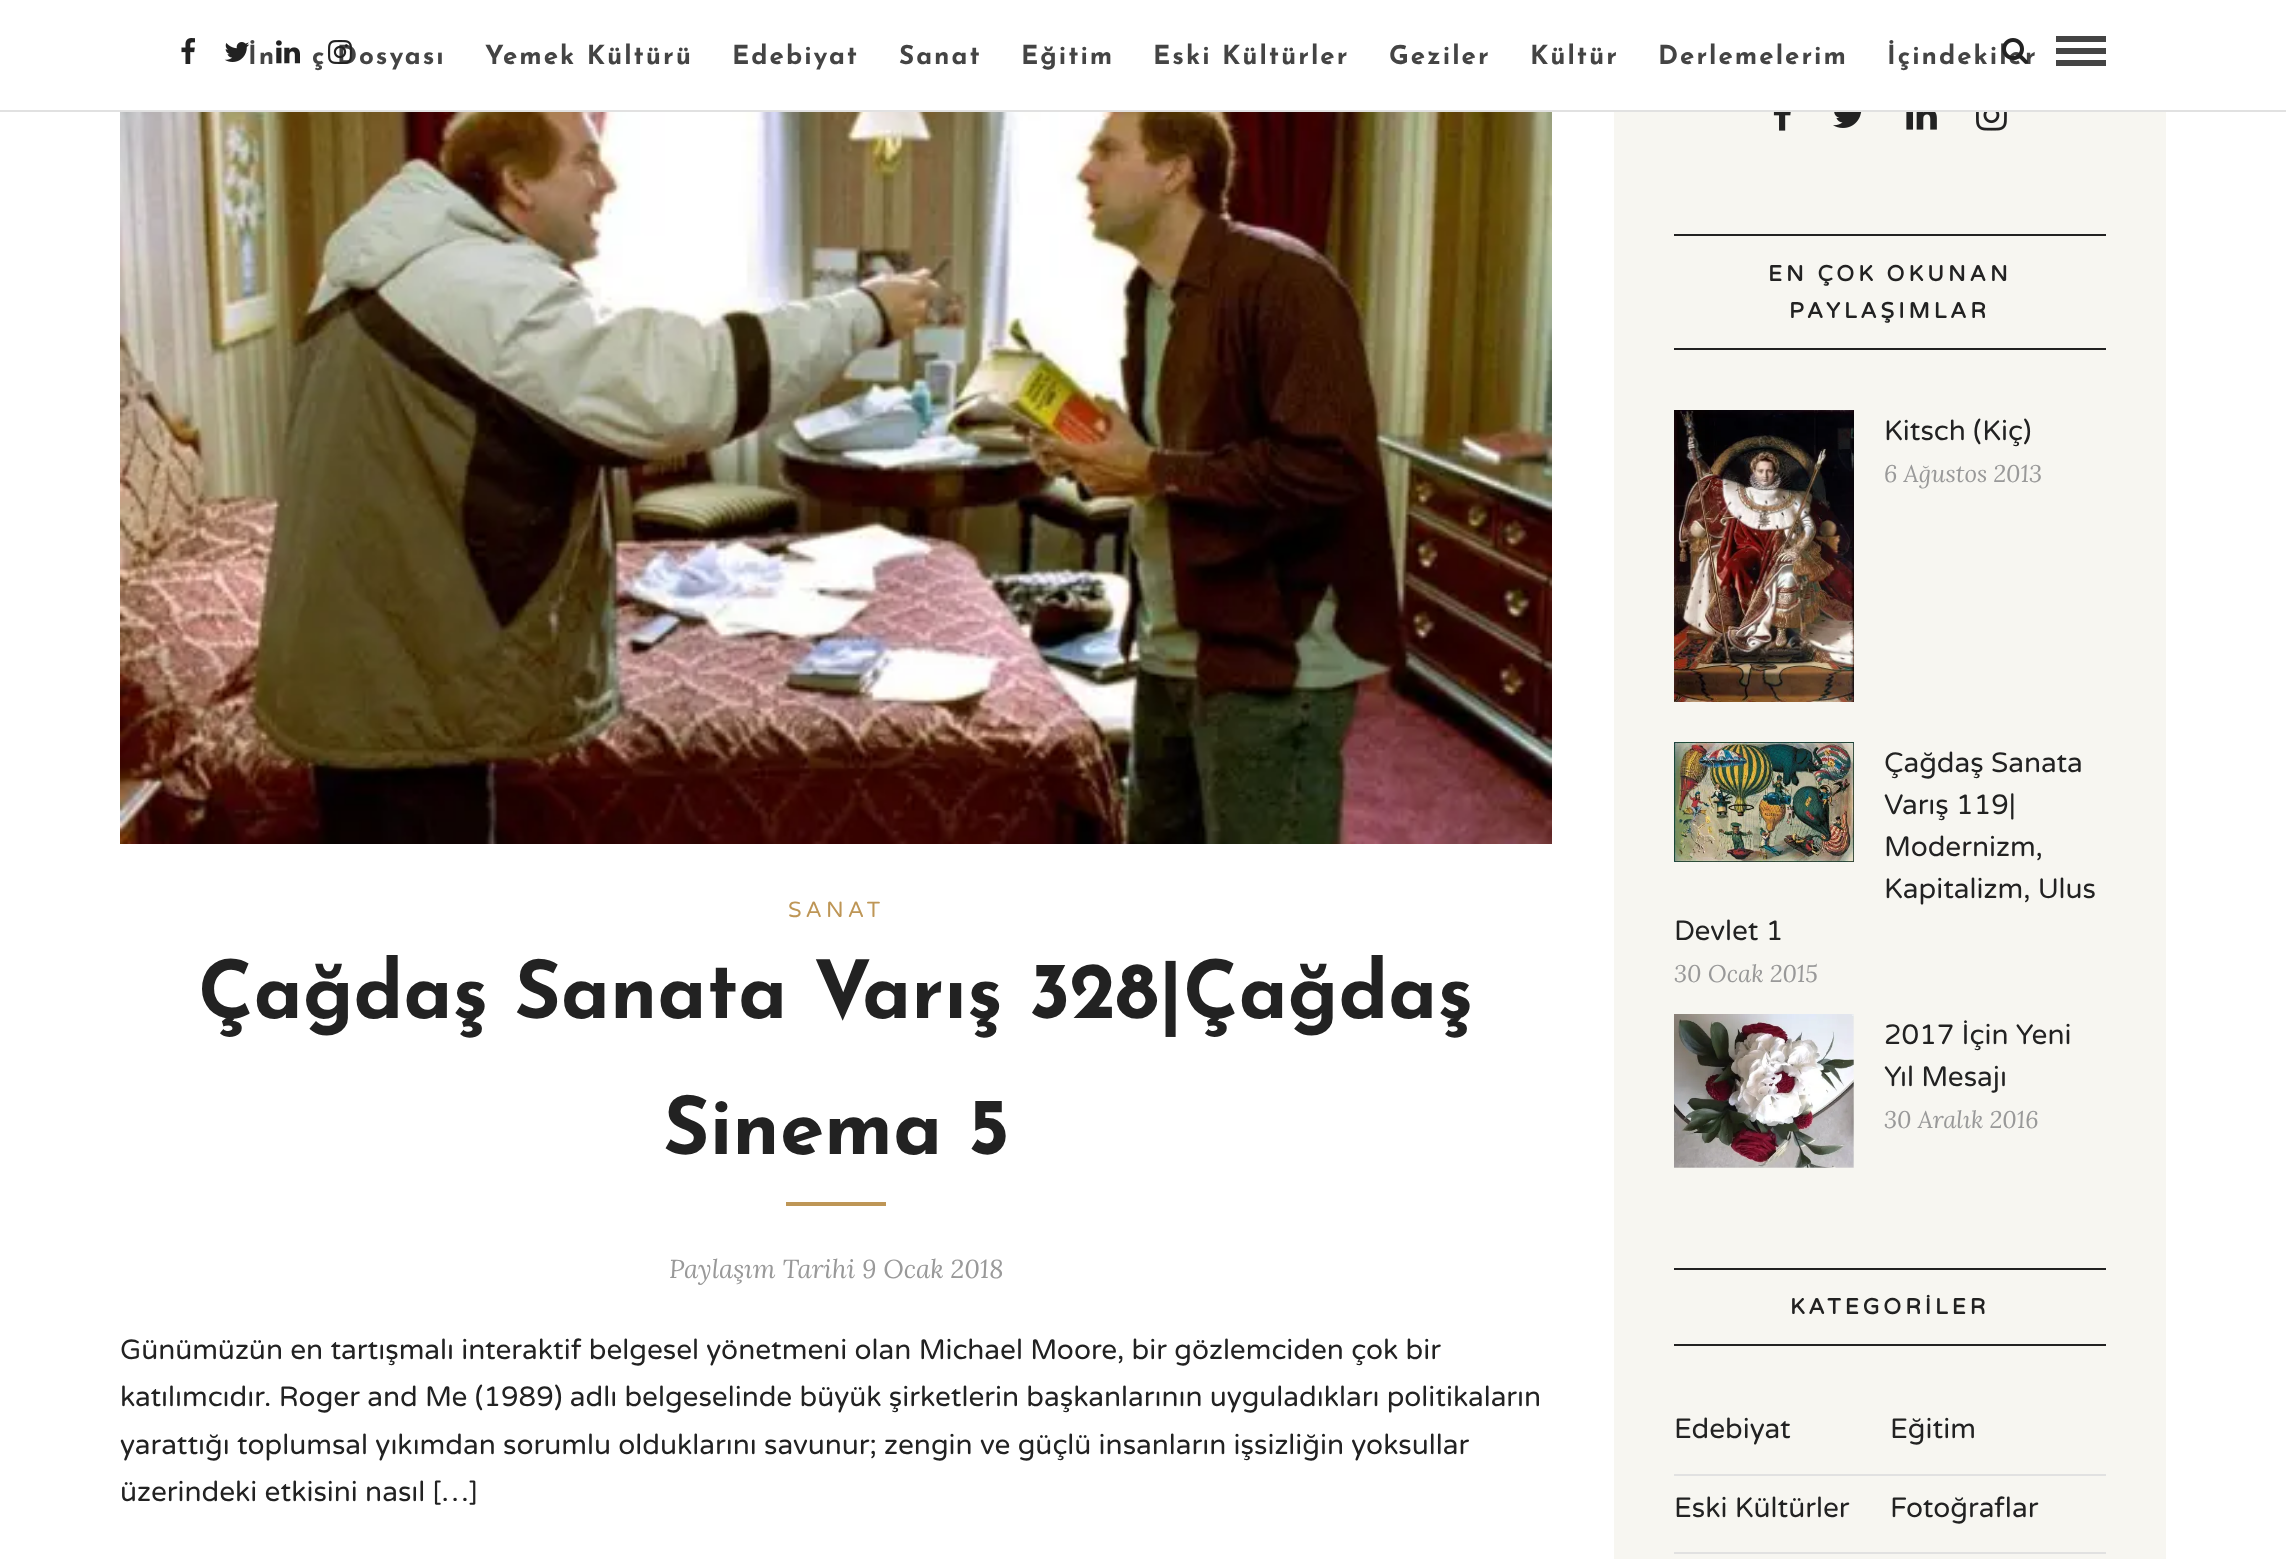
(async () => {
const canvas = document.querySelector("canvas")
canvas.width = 2286
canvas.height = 1559
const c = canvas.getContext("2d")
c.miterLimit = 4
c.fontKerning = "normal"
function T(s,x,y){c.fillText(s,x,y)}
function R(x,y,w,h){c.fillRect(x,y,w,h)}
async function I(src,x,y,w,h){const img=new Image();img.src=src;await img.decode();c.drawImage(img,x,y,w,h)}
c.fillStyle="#fff"
R(0,0,2286,1559)
c.fillStyle="#e1e1e1"
R(0,110,2286,2)
await I("1.png",181,38,14,26)
await I("2.png",224,42,26,20)
await I("3.png",276,40,24,24)
c.letterSpacing="2px"
c.font="bold 26px Josefin Sans"
c.fillStyle="#444"
T("ç Dosyası",312,64)
await I("4.png",328,40,24,24)
T("İçindekiler",1887,64)
await I("5.png",2002,38,26,26)
R(2056,36,50,6)
R(2056,48,50,6)
R(2056,60,50,6)
T("İn",248,64)
T("Yemek Kültürü",485,64)
T("Edebiyat",732,64)
T("Sanat",899,64)
T("Eğitim",1021,64)
T("Eski Kültürler",1153,64)
T("Geziler",1389,64)
T("Kültür",1530,64)
T("Derlemelerim",1658,64)
await I("6.png",120,112,1432,732)
c.letterSpacing="4px"
c.font="22px Varela Round"
c.fillStyle="#be9656"
T("SANAT",788,917)
c.letterSpacing="0px"
c.font="bold 80px Josefin Sans"
c.fillStyle="#222"
T("Çağdaş Sanata Varış 328|Çağdaş",198,1018)
T("Sinema 5",663,1154)
c.fillStyle="#be9656"
R(786,1202,100,4)
c.font="italic 26px Lora"
c.fillStyle="#999"
T("Paylaşım Tarihi 9 Ocak 2018",669,1278)
c.font="28px Varela Round"
c.fillStyle="#222"
T("Günümüzün en tartışmalı interaktif belgesel yönetmeni olan Michael Moore, bir gözlemciden çok bir",120,1359)
T("katılımcıdır. Roger and Me (1989) adlı belgeselinde büyük şirketlerin başkanlarının uyguladıkları politikaların",120,1406)
T("yarattığı toplumsal yıkımdan sorumlu olduklarını savunur; zengin ve güçlü insanların işsizliğin yoksullar",120,1454)
T("üzerindeki etkisini nasıl […]",120,1501)
c.fillStyle="#f7f6f1"
R(1614,112,552,1447)
await I("7.png",1773,112,18,19)
await I("8.png",1833,112,29,16)
await I("9.png",1906,112,31,18)
await I("10.png",1976,112,31,19)
c.fillStyle="#222"
R(1674,234,432,2)
R(1674,348,432,2)
c.letterSpacing="4px"
c.font="bold 22px Varela Round"
T("EN ÇOK OKUNAN",1768,281)
T("PAYLAŞIMLAR",1789,318)
await I("11.png",1674,410,180,292)
c.letterSpacing="0px"
c.font="28px Varela Round"
T("Kitsch (Kiç)",1884,440)
c.font="italic 24px Lora"
c.fillStyle="#999"
T("6 Ağustos 2013",1884,482)
await I("12.png",1674,742,180,120)
c.font="28px Varela Round"
c.fillStyle="#222"
T("Çağdaş Sanata",1884,772)
T("Varış 119|",1884,814)
T("Modernizm,",1884,856)
T("Kapitalizm, Ulus",1884,898)
T("Devlet 1",1674,940)
c.font="italic 24px Lora"
c.fillStyle="#999"
T("30 Ocak 2015",1674,982)
await I("13.png",1674,1014,180,154)
c.font="28px Varela Round"
c.fillStyle="#222"
T("2017 İçin Yeni",1884,1044)
T("Yıl Mesajı",1884,1086)
c.font="italic 24px Lora"
c.fillStyle="#999"
T("30 Aralık 2016",1884,1128)
c.fillStyle="#222"
R(1674,1268,432,2)
R(1674,1344,432,2)
c.letterSpacing="4px"
c.font="bold 22px Varela Round"
T("KATEGORİLER",1790,1314)
c.fillStyle="#e1e1e1"
R(1674,1474,432,2)
c.letterSpacing="0px"
c.font="28px Varela Round"
c.fillStyle="#222"
T("Edebiyat",1674,1438)
T("Eğitim",1890,1438)
c.fillStyle="#e1e1e1"
R(1674,1552,432,2)
c.fillStyle="#222"
T("Eski Kültürler",1674,1517)
T("Fotoğraflar",1890,1517)
})()
